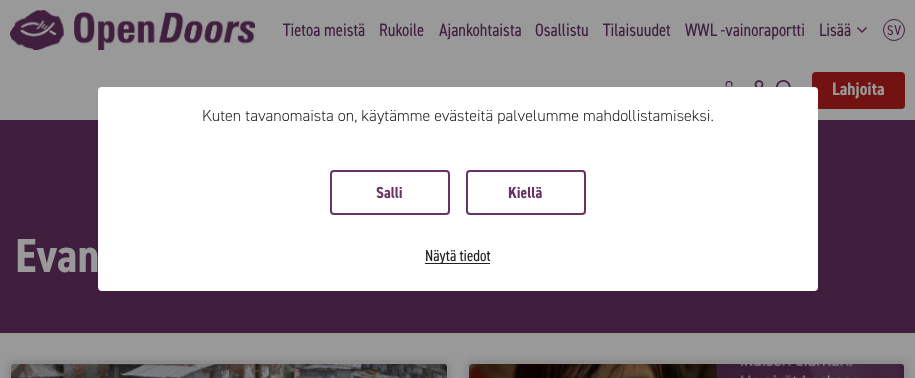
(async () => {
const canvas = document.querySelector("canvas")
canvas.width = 915
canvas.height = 378
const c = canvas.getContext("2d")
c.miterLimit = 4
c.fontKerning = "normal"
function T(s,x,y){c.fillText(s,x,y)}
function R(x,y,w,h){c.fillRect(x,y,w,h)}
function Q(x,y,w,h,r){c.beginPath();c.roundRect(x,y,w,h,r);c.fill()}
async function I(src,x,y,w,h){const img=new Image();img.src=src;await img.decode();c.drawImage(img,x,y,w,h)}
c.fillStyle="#999"
R(0,0,915,378)
await I("1.png",10,10,245,40)
c.font="18px 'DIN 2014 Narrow'"
c.fillStyle="#401e3e"
T("Tietoa meistä",283,36)
T("Rukoile",379,36)
T("Ajankohtaista",439,36)
T("Osallistu",535,36)
T("Tilaisuudet",603,36)
T("WWL -vainoraportti",685,36)
T("Lisää",819,36)
await I("2.png",857,27,10,6)
c.beginPath()
c.arc(894,30,10.5,0,7)
c.strokeStyle="#401e3e"
c.stroke()
c.letterSpacing="1px"
c.font="14px 'DIN 2014 Narrow'"
T("SV",887,35)
await I("3.png",723,81,12,6)
await I("4.png",754,80,10,7)
await I("5.png",776,80,15,7)
c.fillStyle="#731311"
Q(812,72,93,37,4)
c.letterSpacing="0px"
c.font="bold 18px 'DIN 2014 Narrow'"
c.fillStyle="#999"
T("Lahjoita",832,95)
c.fillStyle="#401e3e"
R(0,120,915,213)
c.font="bold 48px 'DIN 2014 Narrow'"
c.fillStyle="#999"
T("Evan",15,272)
c.fillStyle="#7a7a7a"
c.filter="blur(5px)"
c.beginPath()
c.roundRect(10,363,438,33,3)
c.fill()
c.filter="none"
c.fillStyle="#999"
c.beginPath()
c.roundRect(10.5,363.5,437,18,2.5)
c.fill()
c.strokeStyle="#8f8f8f"
c.stroke()
await I("6.png",11,364,436,14)
c.fillStyle="#7a7a7a"
c.filter="blur(5px)"
c.beginPath()
c.roundRect(468,363,437,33,3)
c.fill()
c.filter="none"
c.fillStyle="#999"
c.beginPath()
c.roundRect(468.5,363.5,436,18,2.5)
c.fill()
c.stroke()
await I("7.png",469,364,435,14)
c.fillStyle="#fff"
Q(98,87,720,204,4)
c.font="300 16px 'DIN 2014'"
c.fillStyle="#222"
T("Kuten tavanomaista on, käytämme evästeitä palvelumme mahdollistamiseksi.",202,121)
c.beginPath()
c.roundRect(331,171,118,43,3)
c.strokeStyle="#6b3267"
c.lineWidth=2
c.stroke()
c.font="bold 16px 'DIN 2014 Narrow'"
c.fillStyle="#6b3267"
T("Salli",376,198)
c.beginPath()
c.roundRect(467,171,118,43,3)
c.stroke()
T("Kiellä",508,198)
c.fillStyle="#222"
R(425,263,65,1)
c.font="16px 'DIN 2014 Narrow'"
T("Näytä tiedot",425,261)
})()
